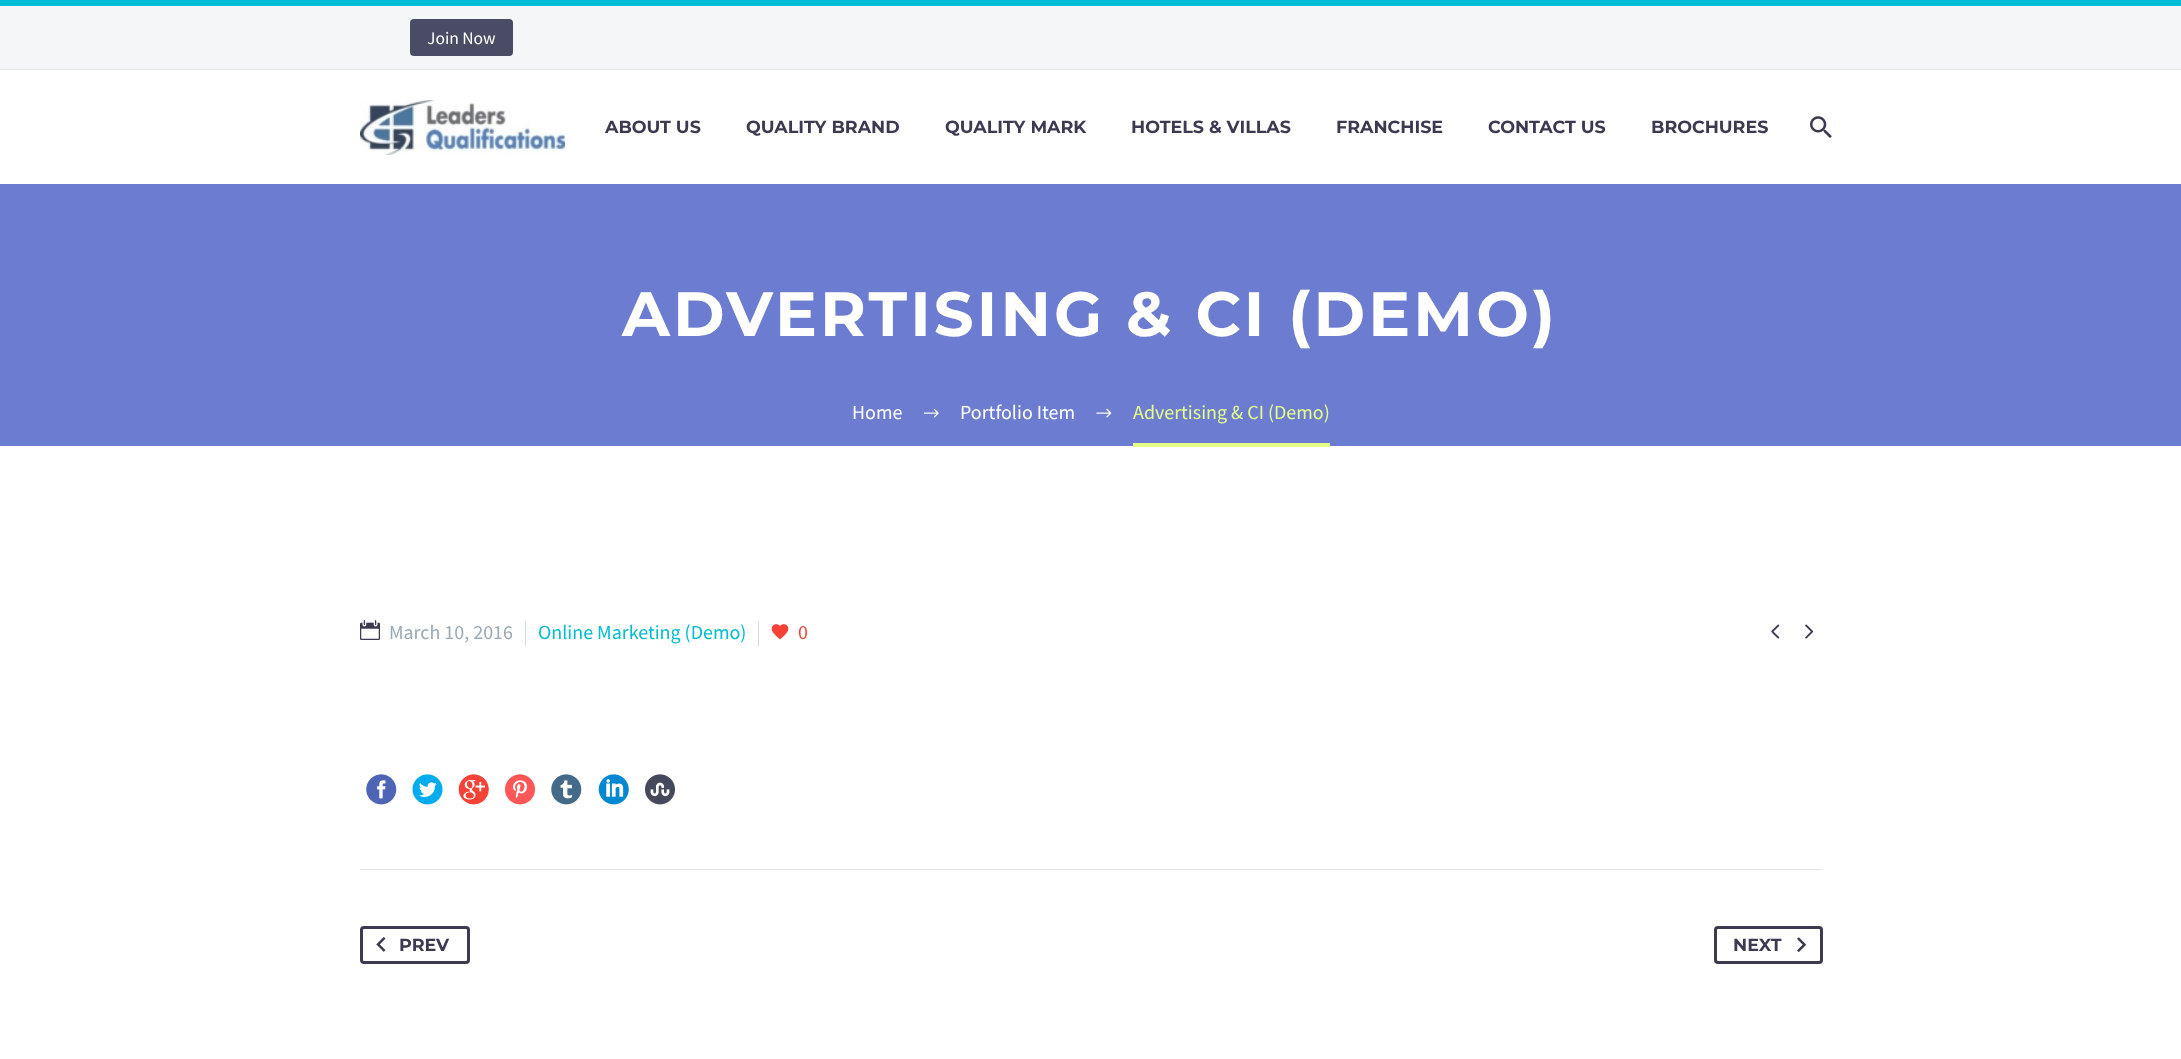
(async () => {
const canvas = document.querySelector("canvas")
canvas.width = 2181
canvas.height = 1059
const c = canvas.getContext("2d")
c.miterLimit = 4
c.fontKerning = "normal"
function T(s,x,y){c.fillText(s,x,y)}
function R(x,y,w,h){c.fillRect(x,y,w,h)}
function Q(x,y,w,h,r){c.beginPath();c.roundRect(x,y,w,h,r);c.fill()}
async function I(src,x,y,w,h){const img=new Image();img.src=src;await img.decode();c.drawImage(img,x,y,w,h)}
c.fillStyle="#fff"
R(0,0,2181,1059)
c.fillStyle="#f4f6f7"
R(0,6,2181,63)
c.fillStyle="#00bcd4"
R(0,0,2181,6)
c.fillStyle="#dfe5e8"
R(0,69,2181,1)
c.fillStyle="#494c64"
Q(410,19,103,37,4)
c.font="17.5px Source Sans Pro"
c.fillStyle="#fff"
T("Join Now",427,44)
await I("1.png",360,100,205,55)
c.font="bold 17.5px Montserrat"
c.fillStyle="#3c3950"
T("ABOUT US",605,133)
T("QUALITY BRAND",746,133)
T("QUALITY MARK",945,133)
T("HOTELS & VILLAS",1131,133)
T("FRANCHISE",1336,133)
T("CONTACT US",1488,133)
T("BROCHURES",1651,133)
await I("2.png",1810,116,22,22)
c.fillStyle="#6c7cd0"
R(0,184,2181,262)
c.letterSpacing="3.1px"
c.font="bold 62.5px Montserrat"
c.fillStyle="#fff"
T("ADVERTISING & CI (DEMO)",622,336)
c.letterSpacing="0px"
c.font="20px Source Sans Pro"
T("Home",852,419)
await I("3.png",923,408,16,10)
T("Portfolio Item",960,419)
await I("4.png",1096,408,16,10)
c.fillStyle="#e7ff89"
R(1133,443,197,4)
T("Advertising & CI (Demo)",1133,419)
await I("5.png",360,620,20,20)
c.fillStyle="#99a9b5"
T("March 10, 2016",389,639)
c.fillStyle="#d4dee1"
R(525,621,1,25)
c.fillStyle="#00bcd4"
T("Online Marketing (Demo)",538,639)
c.fillStyle="#d4dee1"
R(758,621,1,25)
await I("6.png",771,624,18,16)
c.fillStyle="#f44336"
T("0",798,639)
await I("7.png",1771,624,9,15)
await I("8.png",1805,624,9,15)
await I("9.png",366,774,31,31)
await I("10.png",412,774,31,31)
await I("11.png",458,774,31,31)
await I("12.png",505,774,30,31)
await I("13.png",551,774,31,31)
await I("14.png",598,774,31,31)
await I("15.png",645,774,30,31)
c.fillStyle="#dfe5e8"
R(360,869,1463,1)
c.beginPath()
c.roundRect(361.5,927.5,107,35,2.5)
c.strokeStyle="#3c3950"
c.lineWidth=3
c.stroke()
await I("16.png",376,937,10,15)
c.font="bold 17.5px Montserrat"
c.fillStyle="#3c3950"
T("PREV",399,951)
c.beginPath()
c.roundRect(1715.5,927.5,106,35,2.5)
c.stroke()
T("NEXT",1733,951)
await I("17.png",1797,937,10,16)
})()
